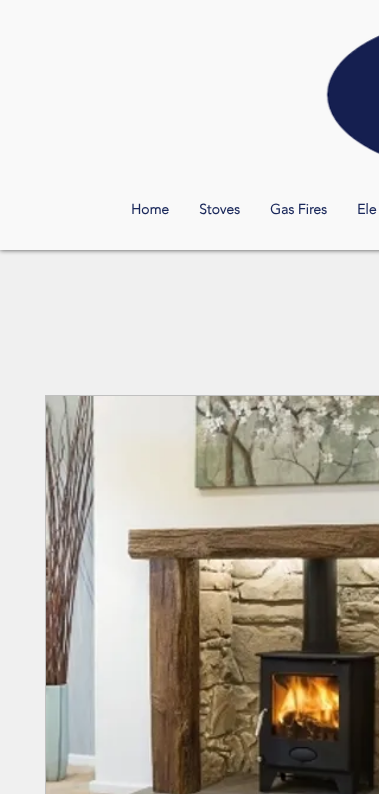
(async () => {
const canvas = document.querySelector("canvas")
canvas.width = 379
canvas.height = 794
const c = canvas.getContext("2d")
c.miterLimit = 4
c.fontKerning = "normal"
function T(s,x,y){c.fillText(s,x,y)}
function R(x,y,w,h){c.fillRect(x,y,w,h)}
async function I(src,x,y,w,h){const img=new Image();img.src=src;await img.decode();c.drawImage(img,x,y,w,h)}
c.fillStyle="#f0f0f0"
R(0,0,379,794)
c.fillStyle="#000000b3"
c.filter="blur(2.5px)"
c.beginPath()
c.rect(0,0,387,250)
c.fill()
c.filter="none"
c.fillStyle="#f9f9f9"
R(0,0,379,250)
await I("1.png",326,35,53,120)
c.font="bold 14px 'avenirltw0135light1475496'"
c.fillStyle="#1a285b"
T("Home",131,214)
T("Stoves",199,214)
T("Gas Fires",270,214)
T("Ele",357,214)
c.strokeStyle="#c0c0c0"
c.strokeRect(45.5,395.5,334,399)
await I("2.png",46,396,333,398)
})()
